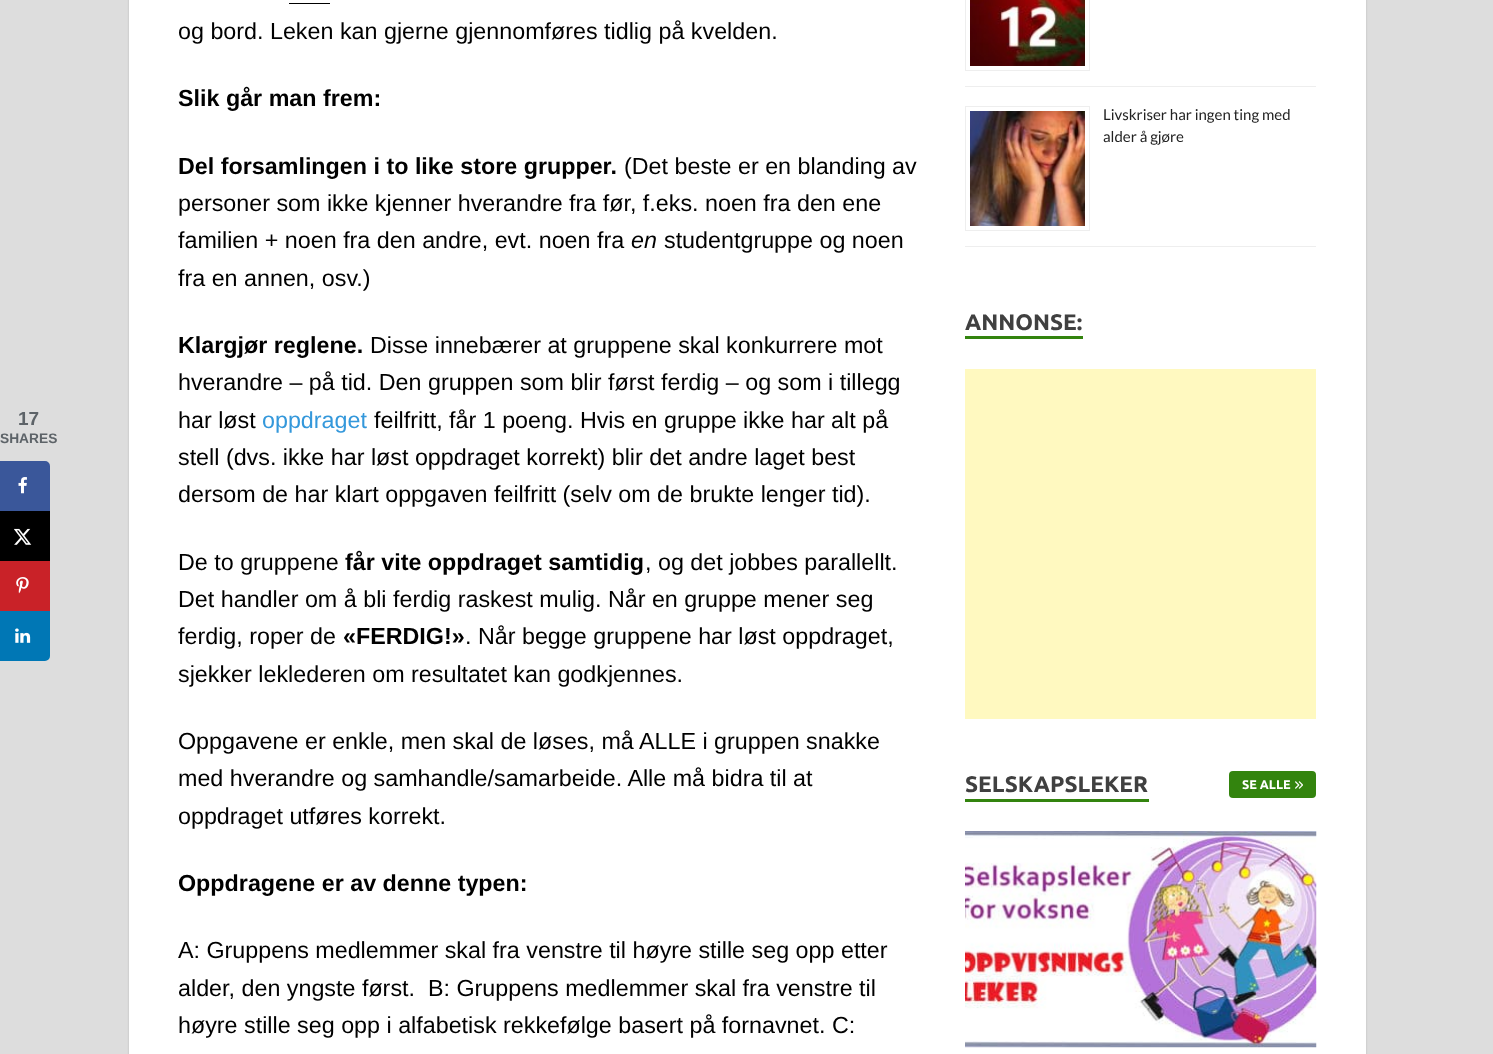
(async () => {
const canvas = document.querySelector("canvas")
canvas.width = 1493
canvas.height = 1054
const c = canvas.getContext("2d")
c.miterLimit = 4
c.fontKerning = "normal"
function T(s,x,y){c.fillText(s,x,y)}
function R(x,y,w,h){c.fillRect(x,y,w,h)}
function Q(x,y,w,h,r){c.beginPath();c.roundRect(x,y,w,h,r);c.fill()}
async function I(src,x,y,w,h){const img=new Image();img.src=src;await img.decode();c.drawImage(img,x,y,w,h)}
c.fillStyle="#ddd"
R(0,0,1493,1054)
c.font="bold 19px Liberation Sans"
c.fillStyle="#5d6368"
T("17",18,425)
c.font="bold 13.75px Liberation Sans"
T("SHARES",0,443)
c.fillStyle="#3a579a"
c.beginPath()
c.roundRect(1.5,462.5,47,47,[0,3.5,0,0])
c.fill()
c.strokeStyle="#3a579a"
c.lineWidth=3
c.stroke()
await I("1.png",18,477,9,17)
c.fillStyle="#000"
R(0,511,50,50)
await I("2.png",14,528,18,17)
c.fillStyle="#c92228"
R(0,561,50,50)
await I("3.png",16,577,13,17)
c.fillStyle="#0077b5"
c.beginPath()
c.roundRect(1.5,612.5,47,47,[0,0,3.5,0])
c.fill()
c.strokeStyle="#0077b5"
c.stroke()
await I("4.png",15,628,16,15)
c.fillStyle="#bbb"
c.filter="blur(1px)"
c.beginPath()
c.rect(129,-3,1237,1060)
c.fill()
c.filter="none"
c.fillStyle="#fff"
R(129,0,1237,1054)
c.font="23.3px Liberation Sans"
c.fillStyle="#000"
T("og bord. Leken kan gjerne gjennomføres tidlig på kvelden.",178,39)
R(289,3,41,1)
c.font="bold 23.3px Liberation Sans"
T("Slik går man frem:",178,106)
T("Del forsamlingen i to like store grupper.",178,174)
c.font="23.3px Liberation Sans"
T("(Det beste er en blanding av",624,174)
T("personer som ikke kjenner hverandre fra før, f.eks. noen fra den ene",178,211)
T("familien + noen fra den andre, evt. noen fra",178,248)
c.font="italic 23.3px Liberation Sans"
T("en",631,248)
c.font="23.3px Liberation Sans"
T("studentgruppe og noen",664,248)
T("fra en annen, osv.)",178,286)
c.font="bold 23.3px Liberation Sans"
T("Klargjør reglene.",178,353)
c.font="23.3px Liberation Sans"
T("Disse innebærer at gruppene skal konkurrere mot",370,353)
T("hverandre – på tid. Den gruppen som blir først ferdig – og som i tillegg",178,390)
T("har løst",178,428)
c.fillStyle="#3498db"
T("oppdraget",262,428)
c.fillStyle="#000"
T("feilfritt, får 1 poeng. Hvis en gruppe ikke har alt på",374,428)
T("stell (dvs. ikke har løst oppdraget korrekt) blir det andre laget best",178,465)
T("dersom de har klart oppgaven feilfritt (selv om de brukte lenger tid).",178,502)
T("De to gruppene",178,570)
c.font="bold 23.3px Liberation Sans"
T("får vite oppdraget samtidig",345,570)
c.font="23.3px Liberation Sans"
T(", og det jobbes parallellt.",645,570)
T("Det handler om å bli ferdig raskest mulig. Når en gruppe mener seg",178,607)
T("ferdig, roper de",178,644)
c.font="bold 23.3px Liberation Sans"
T("«FERDIG!»",343,644)
c.font="23.3px Liberation Sans"
T(". Når begge gruppene har løst oppdraget,",465,644)
T("sjekker leklederen om resultatet kan godkjennes.",178,682)
T("Oppgavene er enkle, men skal de løses, må ALLE i gruppen snakke",178,749)
T("med hverandre og samhandle/samarbeide. Alle må bidra til at",178,786)
T("oppdraget utføres korrekt.",178,824)
c.font="bold 23.3px Liberation Sans"
T("Oppdragene er av denne typen:",178,891)
c.font="23.3px Liberation Sans"
T("A: Gruppens medlemmer skal fra venstre til høyre stille seg opp etter",178,958)
T("alder, den yngste først.  B: Gruppens medlemmer skal fra venstre til",178,996)
T("høyre stille seg opp i alfabetisk rekkefølge basert på fornavnet. C:",178,1033)
c.fillStyle="#eee"
R(965,86,351,1)
c.strokeStyle="#eee"
c.lineWidth=1
c.strokeRect(965.5,-.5,124,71)
await I("5.png",970,0,115,66)
R(965,246,351,1)
c.strokeRect(965.5,106.5,124,124)
await I("6.png",970,111,115,115)
c.font="15px Lato"
c.fillStyle="#222"
T("Livskriser har ingen ting med",1103,120)
T("alder å gjøre",1103,142)
c.fillStyle="#33840e"
R(965,336,118,3)
c.font="bold 22.5px Ubuntu"
c.fillStyle="#404040"
T("ANNONSE:",965,330)
c.fillStyle="#fff9c0"
R(965,369,351,350)
c.fillStyle="#33840e"
R(965,799,184,3)
c.fillStyle="#404040"
T("SELSKAPSLEKER",965,792)
c.fillStyle="#33840e"
Q(1229,771,87,27,4)
c.font="bold 12.5px Ubuntu"
c.fillStyle="#fff"
T("SE ALLE",1242,789)
await I("7.png",1295,781,8,8)
await I("8.png",965,831,352,217)
})()
